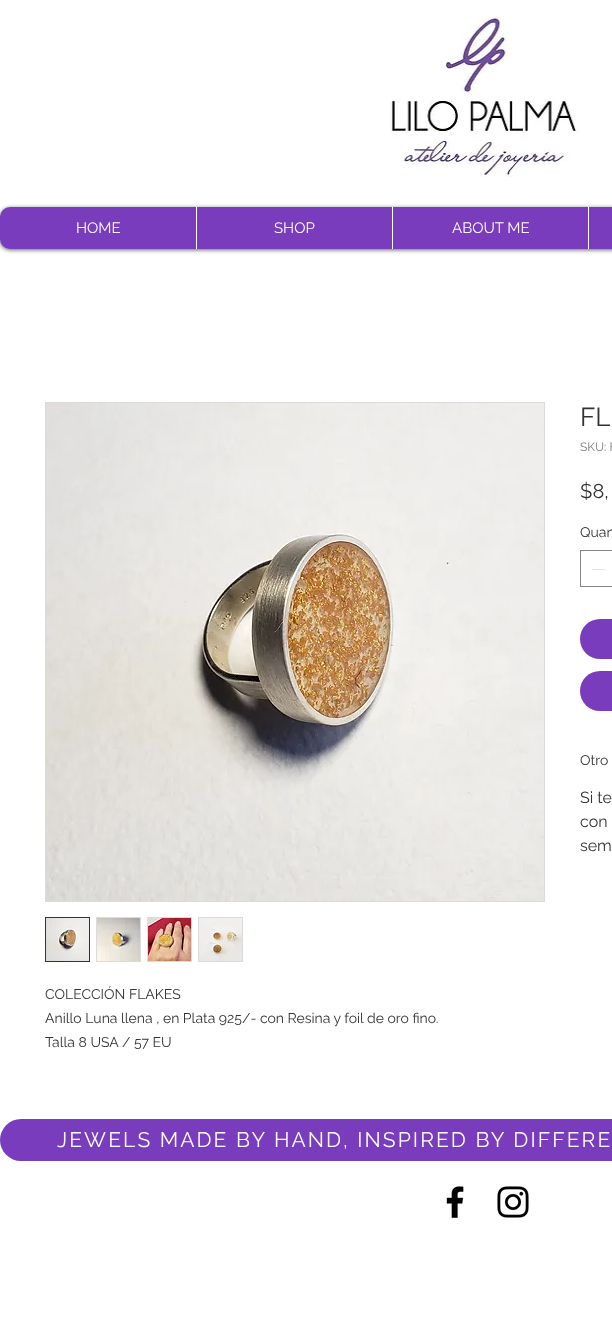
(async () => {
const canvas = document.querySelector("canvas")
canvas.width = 612
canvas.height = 1322
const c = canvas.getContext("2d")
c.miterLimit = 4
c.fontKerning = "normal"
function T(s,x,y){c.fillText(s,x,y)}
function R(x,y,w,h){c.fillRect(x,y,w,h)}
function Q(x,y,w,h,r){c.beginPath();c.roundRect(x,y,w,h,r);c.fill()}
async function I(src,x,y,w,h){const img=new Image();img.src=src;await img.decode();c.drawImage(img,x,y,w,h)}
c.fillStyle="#fff"
R(0,0,612,1322)
await I("1.png",390,17,189,160)
c.fillStyle="#00000099"
c.filter="blur(2px)"
c.beginPath()
c.roundRect(0,208,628,42,10)
c.fill()
c.filter="none"
c.fillStyle="#783cbd"
Q(0,207,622,42,10)
c.font="15px Raleway"
c.fillStyle="#fff"
T("HOME",76,233)
R(196,207,1,42)
T("SHOP",274,233)
R(392,207,1,42)
T("ABOUT ME",452,233)
R(588,207,1,42)
c.font="26px Raleway"
c.fillStyle="#333"
T("FL",580,426)
c.font="12px Raleway"
c.fillStyle="#7a7a7a"
T("SKU: F",580,451)
c.font="20px Raleway"
c.fillStyle="#333"
T("$8,",580,498)
c.font="14px Raleway"
T("Quan",580,537)
c.strokeStyle="#858585"
c.strokeRect(580.5,550.5,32,36)
c.fillStyle="#e3e3e3"
R(592,569,13,1)
c.fillStyle="#783cbd"
Q(580,619,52,40,20)
Q(580,671,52,40,20)
c.fillStyle="#333"
T("Otro",580,765)
c.font="16px Raleway"
T("Si te",580,803)
T("con",580,827)
T("sem",580,851)
c.strokeStyle="#dbdbdb"
c.strokeRect(45.5,402.5,499,499)
await I("2.png",46,403,498,498)
c.strokeStyle="#333"
c.strokeRect(45.5,917.5,44,44)
await I("3.png",46,918,43,43)
c.fillStyle="#dbdbdb"
R(96,917,45,45)
await I("4.png",97,918,43,43)
R(147,917,45,45)
await I("5.png",148,918,43,43)
R(198,917,45,45)
await I("6.png",199,918,43,43)
c.font="14px Raleway"
c.fillStyle="#333"
T("COLECCIÓN FLAKES",45,999)
T("Anillo Luna llena , en Plata 925/- con Resina y foil de oro fino.",45,1023)
T("Talla 8 USA / 57 EU",45,1047)
c.fillStyle="#783cbd"
Q(0,1119,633,42,21)
c.letterSpacing="2.1px"
c.font="21px Raleway"
c.fillStyle="#fff"
T("JEWELS MADE BY HAND, INSPIRED BY DIFFERE",57,1147)
await I("7.png",446,1186,18,32)
await I("8.png",497,1186,32,32)
})()
